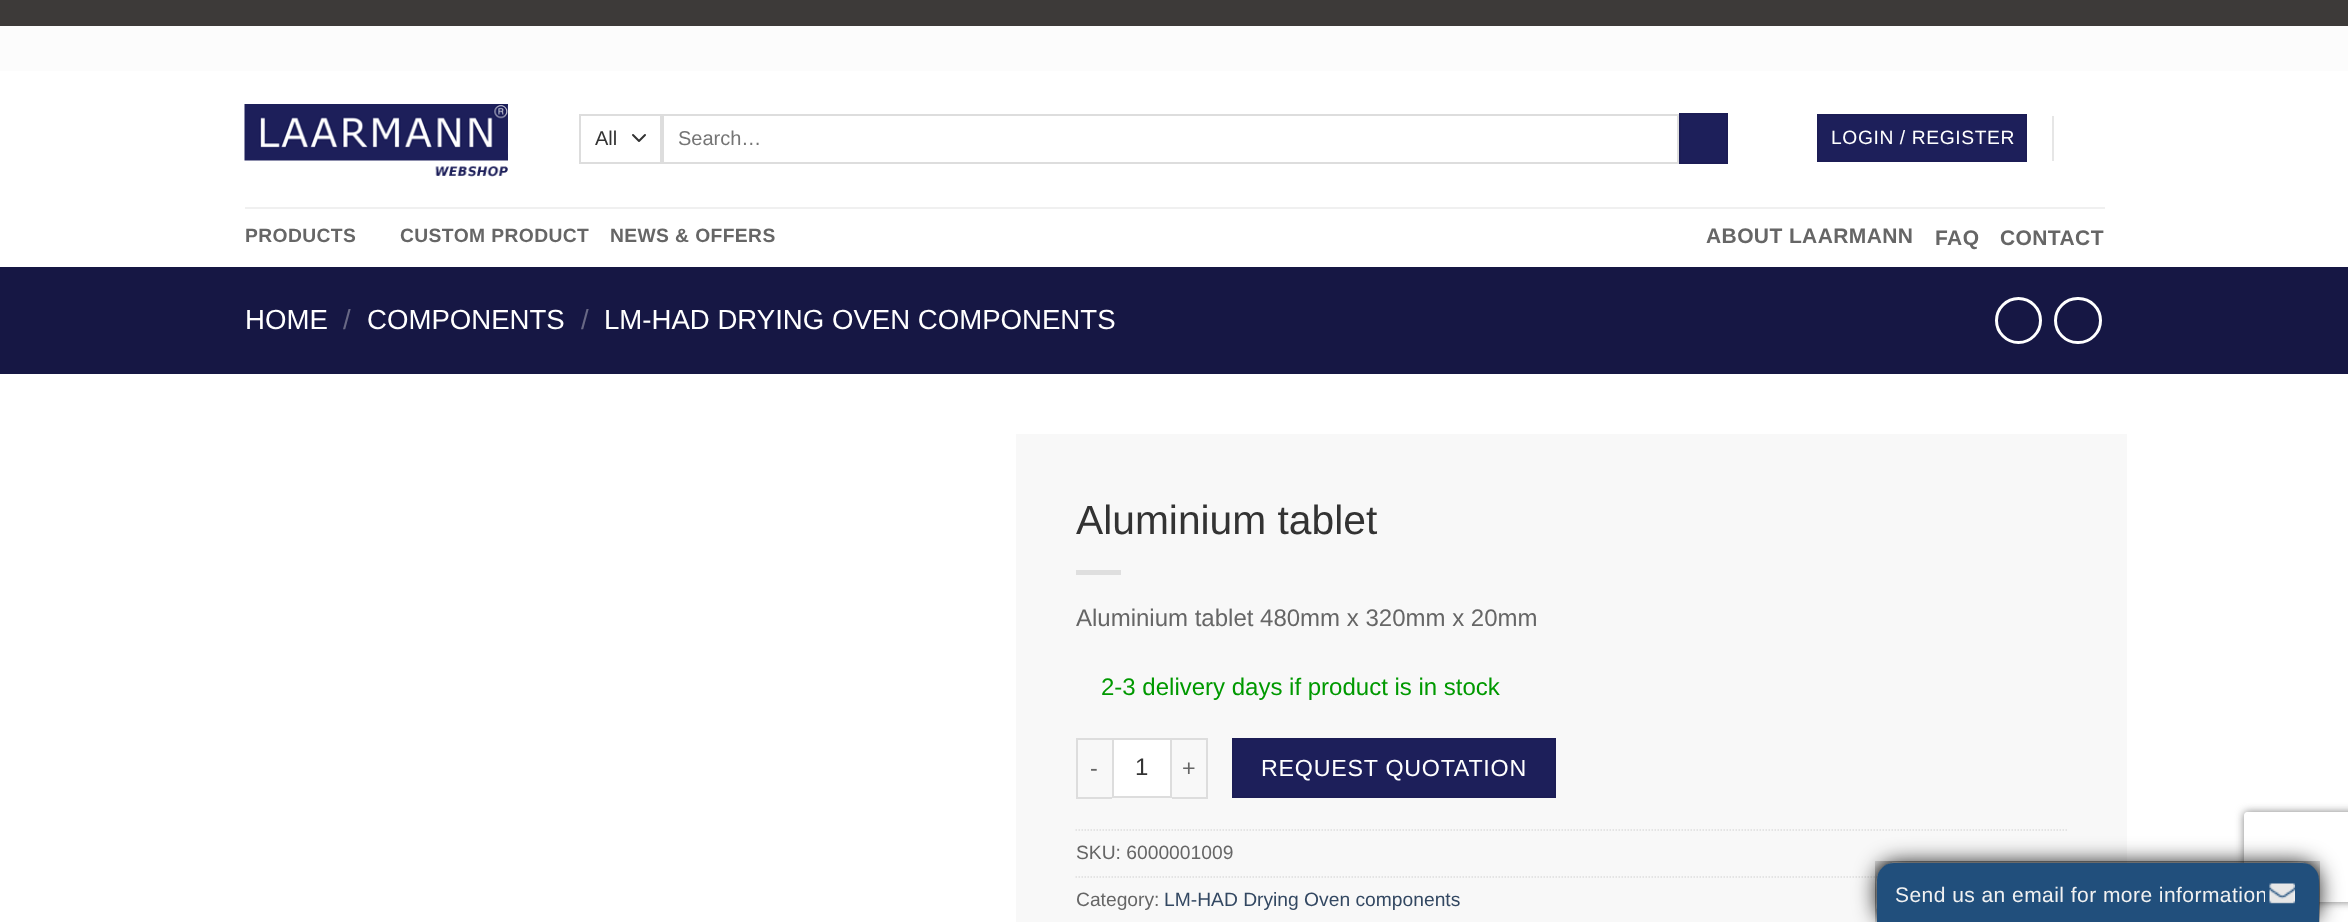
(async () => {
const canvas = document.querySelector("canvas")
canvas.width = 2348
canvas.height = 922
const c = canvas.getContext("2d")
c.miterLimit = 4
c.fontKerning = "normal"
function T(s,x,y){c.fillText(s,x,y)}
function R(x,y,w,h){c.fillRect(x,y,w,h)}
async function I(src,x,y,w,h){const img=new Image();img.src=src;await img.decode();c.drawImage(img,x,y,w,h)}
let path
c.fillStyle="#3d3a39"
R(0,0,2348,922)
c.fillStyle="#fff"
R(0,71,2348,851)
c.fillStyle="#fcfcfc"
R(0,26,2348,45)
await I("1.png",244,104,264,73)
path = new Path2D("M633 135l6 6l6-6")
c.strokeStyle="#333"
c.lineWidth=2
c.lineCap="round"
c.lineJoin="round"
c.stroke(path)
c.strokeStyle="#ddd"
c.lineJoin="miter"
c.strokeRect(580,115,81,48)
c.font="20px Liberation Sans"
c.fillStyle="#333"
T("All",595,145)
c.strokeRect(663,115,1015,48)
c.fillStyle="#757575"
T("Search…",678,145)
c.fillStyle="#1d1f5a"
c.beginPath()
c.rect(1680,114,47,49)
c.fill()
c.strokeStyle="#1c1d56"
c.stroke()
c.beginPath()
c.rect(1818,115,208,46)
c.fill()
c.stroke()
c.letterSpacing="0.6px"
c.font="19.25px Liberation Sans"
c.fillStyle="#fff"
T("LOGIN / REGISTER",1831,144)
c.fillStyle="#e6e6e6"
R(2052,116,2,45)
c.fillStyle="#f0f0f0"
R(245,207,1860,2)
c.letterSpacing="0.4px"
c.font="bold 19.25px Liberation Sans"
c.fillStyle="#666"
T("PRODUCTS",245,242)
T("CUSTOM PRODUCT",400,242)
T("NEWS & OFFERS",610,242)
c.font="bold 21px Liberation Sans"
T("ABOUT LAARMANN",1706,243)
T("FAQ",1935,245)
T("CONTACT",2000,245)
c.fillStyle="#161744"
R(0,267,2348,107)
c.letterSpacing="0px"
c.font="27.6px Liberation Sans"
c.fillStyle="#fff"
T("HOME",245,329)
c.fillStyle="#686885"
T("/",343,329)
c.fillStyle="#fff"
T("COMPONENTS",367,329)
c.fillStyle="#686885"
T("/",581,329)
c.fillStyle="#fff"
T("LM-HAD DRYING OVEN COMPONENTS",604,329)
c.beginPath()
c.arc(2018.5,320.5,22,0,7)
c.strokeStyle="#fff"
c.lineWidth=3
c.stroke()
c.beginPath()
c.roundRect(2055.5,298.5,45,44,22)
c.stroke()
c.fillStyle="#f8f8f8"
R(1016,434,1111,488)
c.font="40.75px Liberation Sans"
c.fillStyle="#333"
T("Aluminium tablet",1076,534)
c.fillStyle="#dfdfdf"
R(1076,570,45,5)
c.font="24px Liberation Sans"
c.fillStyle="#666"
T("Aluminium tablet 480mm x 320mm x 20mm",1076,626)
c.fillStyle="#090"
T("2-3 delivery days if product is in stock",1101,695)
c.fillStyle="#ddd"
R(1076,738,36,2)
R(1076,797,36,2)
R(1076,738,2,60)
c.letterSpacing="0.75px"
c.font="23.25px Liberation Sans"
c.fillStyle="#666"
T("-",1090,776)
c.fillStyle="#fff"
c.beginPath()
c.rect(1113,739,58,58)
c.fill()
c.strokeStyle="#ddd"
c.lineWidth=2
c.stroke()
c.letterSpacing="0px"
c.font="24px Liberation Sans"
c.fillStyle="#333"
T("1",1135,775)
c.fillStyle="#ddd"
R(1172,738,36,2)
R(1206,738,2,60)
R(1172,797,36,2)
c.letterSpacing="0.75px"
c.font="23.25px Liberation Sans"
c.fillStyle="#666"
T("+",1182,776)
c.fillStyle="#1d1f5a"
c.beginPath()
c.rect(1233,739,322,58)
c.fill()
c.strokeStyle="#1c1d56"
c.stroke()
c.fillStyle="#fff"
T("REQUEST QUOTATION",1261,776)
path = new Path2D("M1075.5 830h991.5")
c.strokeStyle="#ddd"
c.lineWidth=1.5
c.lineCap="butt"
c.setLineDash([1.5,1.5])
c.stroke(path)
c.letterSpacing="0px"
c.font="19.25px Liberation Sans"
c.fillStyle="#666"
T("SKU: 6000001009",1076,859)
path = new Path2D("M1075.5 877h991.5")
c.stroke(path)
T("Category:",1076,906)
c.fillStyle="#334862"
T("LM-HAD Drying Oven components",1164,906)
c.save()
path = new Path2D("M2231 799h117v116h-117zm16 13h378c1.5 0 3 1.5 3 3v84c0 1.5-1.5 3-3 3h-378c-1.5 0-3-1.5-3-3v-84c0-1.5 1.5-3 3-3z")
c.clip(path,"evenodd")
c.fillStyle="#808080"
c.filter="blur(4px)"
c.beginPath()
c.roundRect(2244,812,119,90,3)
c.fill()
c.filter="none"
c.restore()
c.fillStyle="#111"
c.filter="blur(11px)"
c.beginPath()
c.roundRect(1877,863,442,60,20)
c.fill()
c.filter="none"
await I("2.png",1875,861,445,61)
c.fillStyle="#214f7c"
path = new Path2D("M1894 863h408c9.5 0 17 7.5 17 17v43h-442v-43c0-9.5 7.5-17 17-17z")
c.fill(path)
c.save()
c.beginPath()
c.rect(1895,863,370,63)
c.clip()
c.letterSpacing="0.45px"
c.font="21px Liberation Sans"
c.fillStyle="#f1f1f1"
T("Send us an email for more information",1895,902)
c.restore()
await I("3.png",2269,883,26,21)
})()
